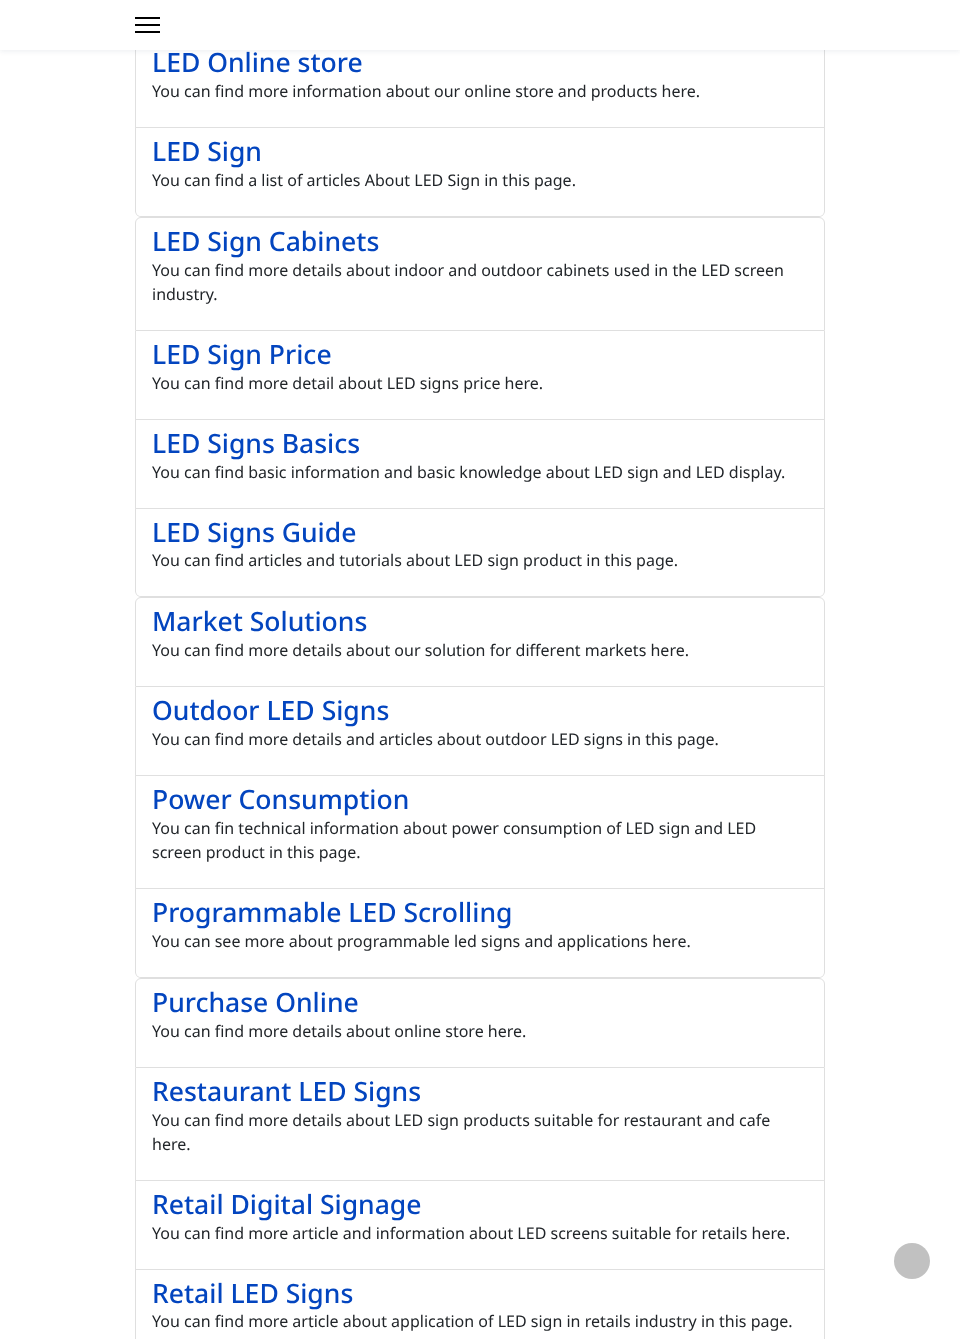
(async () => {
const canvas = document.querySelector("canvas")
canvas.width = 960
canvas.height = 1339
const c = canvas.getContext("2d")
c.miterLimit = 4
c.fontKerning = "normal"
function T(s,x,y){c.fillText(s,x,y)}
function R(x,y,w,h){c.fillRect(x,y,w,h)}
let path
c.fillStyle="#fff"
R(0,0,960,1339)
c.fillStyle="#dfdfdf"
path = new Path2D("M825 39v89l-1-1v-88z")
c.fill(path)
c.fillStyle="#0000001f"
path = new Path2D("M825 128h-690l1-1h688z")
c.fill(path)
path = new Path2D("M135 128v-89h1v88z")
c.fill(path)
c.fillStyle="#0725440f"
c.filter="blur(2px)"
c.beginPath()
c.rect(0,2,960,50)
c.fill()
c.filter="none"
c.fillStyle="#fff"
R(0,0,960,50)
c.fillStyle="#000"
R(135,17,25,2)
R(135,24,25,2)
R(135,31,25,2)
c.font="500 26.5px Noto Sans"
c.fillStyle="#0345bf"
T("LED Online store",152,72)
c.font="16px Noto Sans"
c.fillStyle="#212529"
T("You can find more information about our online store and products here.",152,97)
c.fillStyle="#dfdfdf"
path = new Path2D("M135 128h690v83c0 3-3 6-6 6h-678c-3 0-6-3-6-6zm1 0h688v83c0 3-2 5-5 5h-678c-3 0-5-2-5-5z")
c.fill(path,"evenodd")
c.font="500 26.5px Noto Sans"
c.fillStyle="#0345bf"
T("LED Sign",152,161)
c.font="16px Noto Sans"
c.fillStyle="#212529"
T("You can find a list of articles About LED Sign in this page.",152,186)
c.beginPath()
c.roundRect(135.5,217.5,689,113,[5.5,5.5,0,0])
c.strokeStyle="#dfdfdf"
c.stroke()
c.font="500 26.5px Noto Sans"
c.fillStyle="#0345bf"
T("LED Sign Cabinets",152,251)
c.font="16px Noto Sans"
c.fillStyle="#212529"
T("You can find more details about indoor and outdoor cabinets used in the LED screen",152,276)
T("industry.",152,300)
c.fillStyle="#dfdfdf"
path = new Path2D("M825 331v89l-1-1v-88z")
c.fill(path)
c.fillStyle="#0000001f"
path = new Path2D("M825 420h-690l1-1h688z")
c.fill(path)
path = new Path2D("M135 420v-89h1v88z")
c.fill(path)
c.font="500 26.5px Noto Sans"
c.fillStyle="#0345bf"
T("LED Sign Price",152,364)
c.font="16px Noto Sans"
c.fillStyle="#212529"
T("You can find more detail about LED signs price here.",152,389)
c.fillStyle="#dfdfdf"
path = new Path2D("M825 420v89l-1-1v-88z")
c.fill(path)
c.fillStyle="#0000001f"
path = new Path2D("M825 509h-690l1-1h688z")
c.fill(path)
path = new Path2D("M135 509v-89h1v88z")
c.fill(path)
c.font="500 26.5px Noto Sans"
c.fillStyle="#0345bf"
T("LED Signs Basics",152,453)
c.font="16px Noto Sans"
c.fillStyle="#212529"
T("You can find basic information and basic knowledge about LED sign and LED display.",152,478)
c.fillStyle="#dfdfdf"
path = new Path2D("M135 509h690v82c0 3-3 6-6 6h-678c-3 0-6-3-6-6zm1 0h688v82c0 3-2 5-5 5h-678c-3 0-5-2-5-5z")
c.fill(path,"evenodd")
c.font="500 26.5px Noto Sans"
c.fillStyle="#0345bf"
T("LED Signs Guide",152,542)
c.font="16px Noto Sans"
c.fillStyle="#212529"
T("You can find articles and tutorials about LED sign product in this page.",152,566)
c.beginPath()
c.roundRect(135.5,597.5,689,89,[5.5,5.5,0,0])
c.stroke()
c.font="500 26.5px Noto Sans"
c.fillStyle="#0345bf"
T("Market Solutions",152,631)
c.font="16px Noto Sans"
c.fillStyle="#212529"
T("You can find more details about our solution for different markets here.",152,656)
c.fillStyle="#dfdfdf"
path = new Path2D("M825 687v89l-1-1v-88z")
c.fill(path)
c.fillStyle="#0000001f"
path = new Path2D("M825 776h-690l1-1h688z")
c.fill(path)
path = new Path2D("M135 776v-89h1v88z")
c.fill(path)
c.font="500 26.5px Noto Sans"
c.fillStyle="#0345bf"
T("Outdoor LED Signs",152,720)
c.font="16px Noto Sans"
c.fillStyle="#212529"
T("You can find more details and articles about outdoor LED signs in this page.",152,745)
c.fillStyle="#dfdfdf"
path = new Path2D("M825 776v113l-1-1v-112z")
c.fill(path)
c.fillStyle="#0000001f"
path = new Path2D("M825 889h-690l1-1h688z")
c.fill(path)
path = new Path2D("M135 889v-113h1v112z")
c.fill(path)
c.font="500 26.5px Noto Sans"
c.fillStyle="#0345bf"
T("Power Consumption",152,809)
c.font="16px Noto Sans"
c.fillStyle="#212529"
T("You can fin technical information about power consumption of LED sign and LED",152,834)
T("screen product in this page.",152,858)
c.fillStyle="#dfdfdf"
path = new Path2D("M135 889h690v83c0 3-3 6-6 6h-678c-3 0-6-3-6-6zm1 0h688v83c0 3-2 5-5 5h-678c-3 0-5-2-5-5z")
c.fill(path,"evenodd")
c.font="500 26.5px Noto Sans"
c.fillStyle="#0345bf"
T("Programmable LED Scrolling",152,922)
c.font="16px Noto Sans"
c.fillStyle="#212529"
T("You can see more about programmable led signs and applications here.",152,947)
c.beginPath()
c.roundRect(135.5,978.5,689,89,[5.5,5.5,0,0])
c.stroke()
c.font="500 26.5px Noto Sans"
c.fillStyle="#0345bf"
T("Purchase Online",152,1012)
c.font="16px Noto Sans"
c.fillStyle="#212529"
T("You can find more details about online store here.",152,1037)
c.fillStyle="#dfdfdf"
path = new Path2D("M825 1068v113l-1-1v-112z")
c.fill(path)
c.fillStyle="#0000001f"
path = new Path2D("M825 1181h-690l1-1h688z")
c.fill(path)
path = new Path2D("M135 1181v-113h1v112z")
c.fill(path)
c.font="500 26.5px Noto Sans"
c.fillStyle="#0345bf"
T("Restaurant LED Signs",152,1101)
c.font="16px Noto Sans"
c.fillStyle="#212529"
T("You can find more details about LED sign products suitable for restaurant and cafe",152,1126)
T("here.",152,1150)
c.fillStyle="#dfdfdf"
path = new Path2D("M825 1181v89l-1-1v-88z")
c.fill(path)
c.fillStyle="#0000001f"
path = new Path2D("M825 1270h-690l1-1h688z")
c.fill(path)
path = new Path2D("M135 1270v-89h1v88z")
c.fill(path)
c.font="500 26.5px Noto Sans"
c.fillStyle="#0345bf"
T("Retail Digital Signage",152,1214)
c.font="16px Noto Sans"
c.fillStyle="#212529"
T("You can find more article and information about LED screens suitable for retails here.",152,1239)
c.fillStyle="#dfdfdf"
path = new Path2D("M135 1270h690v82c0 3-3 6-6 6h-678c-3 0-6-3-6-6zm1 0h688v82c0 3-2 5-5 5h-678c-3 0-5-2-5-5z")
c.fill(path,"evenodd")
c.font="500 26.5px Noto Sans"
c.fillStyle="#0345bf"
T("Retail LED Signs",152,1303)
c.font="16px Noto Sans"
c.fillStyle="#212529"
T("You can find more article about application of LED sign in retails industry in this page.",152,1327)
c.fillStyle="#c1c1c1"
c.beginPath()
c.arc(912,1261,18,0,7)
c.fill()
})()
